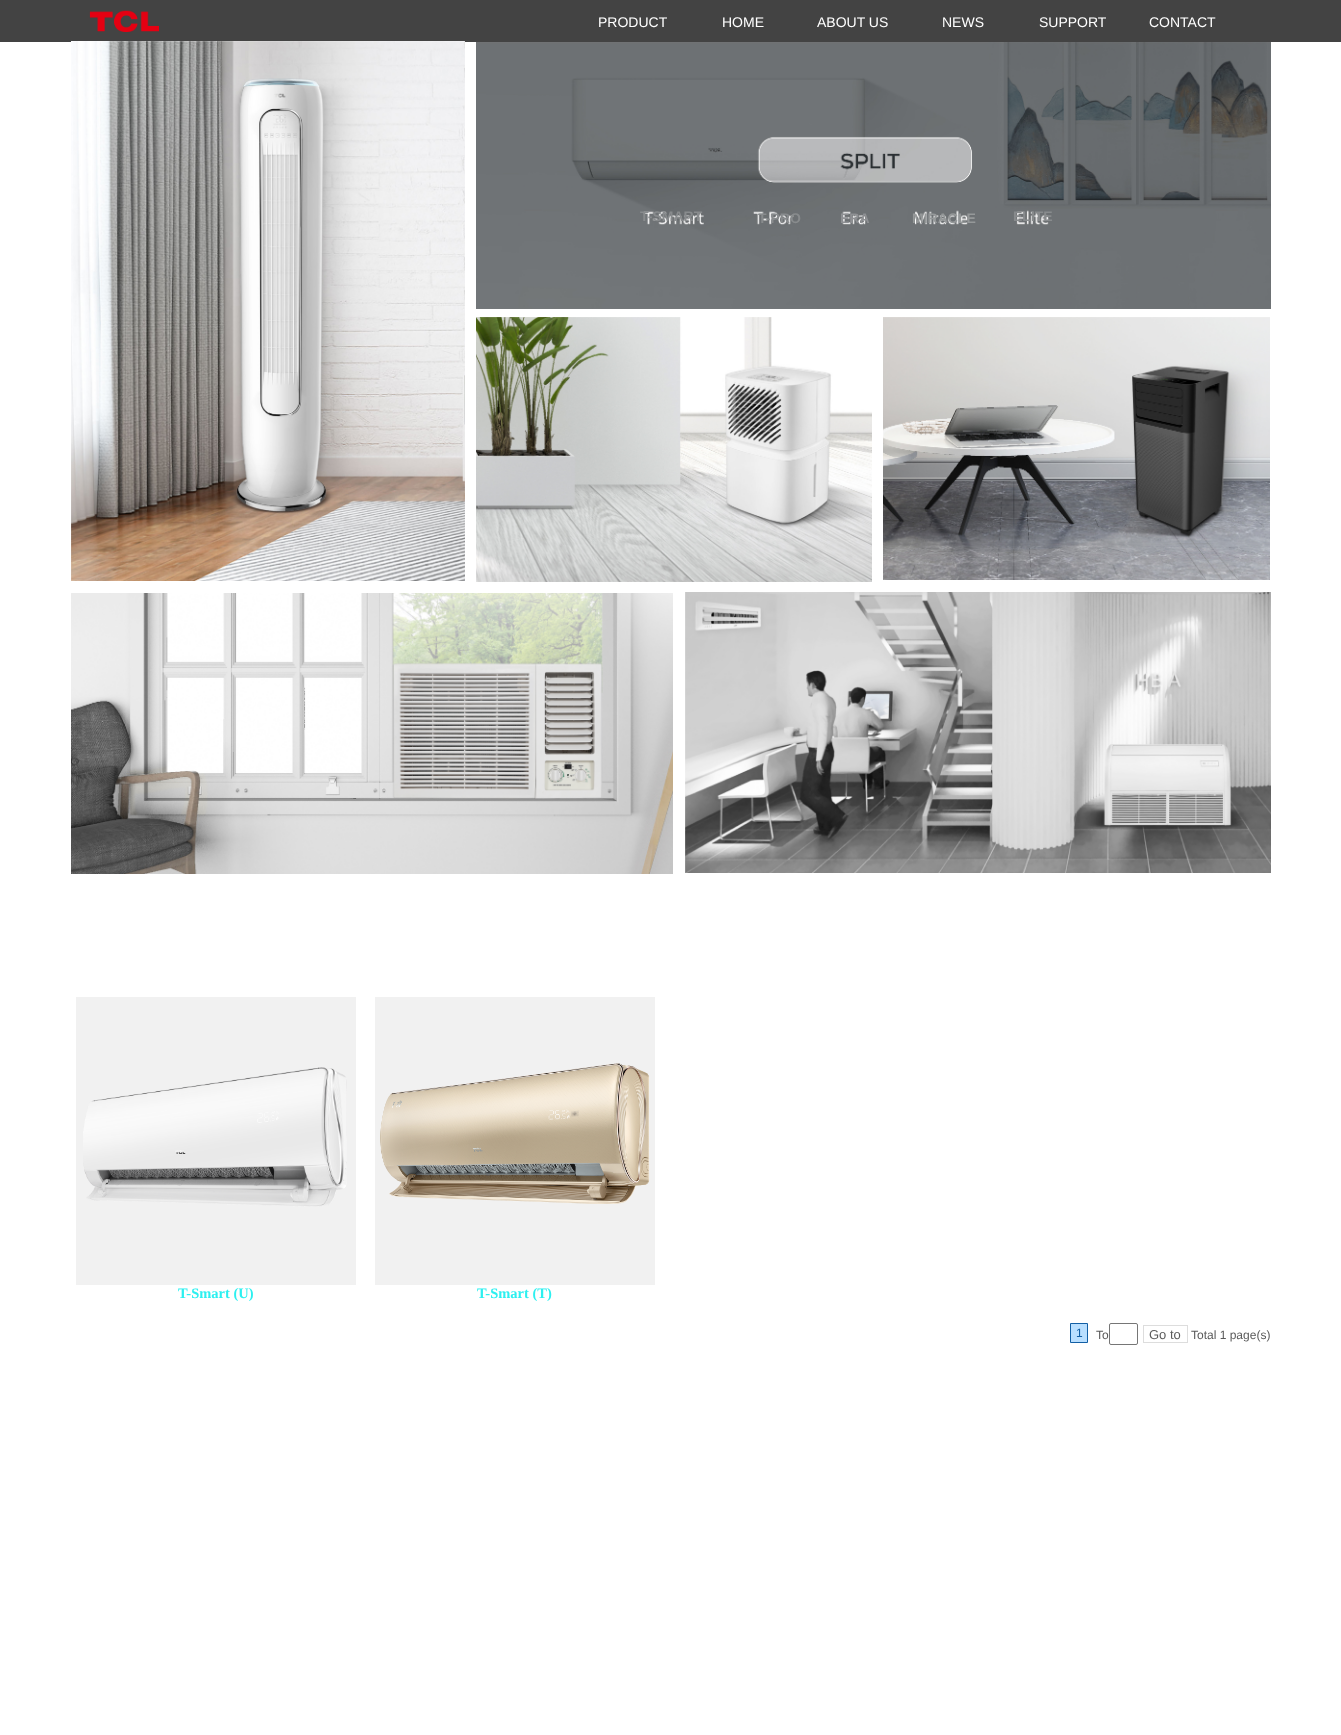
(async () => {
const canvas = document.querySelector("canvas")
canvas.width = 1341
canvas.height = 1735
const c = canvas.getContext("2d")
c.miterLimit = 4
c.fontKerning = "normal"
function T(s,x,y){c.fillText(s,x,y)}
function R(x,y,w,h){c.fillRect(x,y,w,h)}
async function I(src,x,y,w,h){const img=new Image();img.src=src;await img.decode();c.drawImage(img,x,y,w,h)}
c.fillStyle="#fff"
R(0,0,1341,1735)
c.fillStyle="#434343"
R(0,0,1341,42)
await I("1.png",89,10,70,22)
c.font="14px Liberation Sans"
c.fillStyle="#fff"
T("PRODUCT",598,27)
T("HOME",722,27)
T("ABOUT US",817,27)
T("NEWS",942,27)
T("SUPPORT",1039,27)
T("CONTACT",1149,27)
await I("2.png",71,41,394,540)
await I("3.png",476,42,795,267)
c.font="bold 14px Liberation Sans"
c.fillStyle="#888b8d"
T("T-SMART",640,221)
T("T-PRO",758,223)
c.fillStyle="#8e9093"
T("ERA",840,223)
c.fillStyle="#959899"
T("MIRACLE",912,223)
c.fillStyle="#888b8d"
T("ELITE",1013,221)
await I("4.png",476,317,396,265)
await I("5.png",883,317,387,263)
await I("6.png",71,593,602,281)
await I("7.png",685,592,586,281)
c.fillStyle="#f1f1f1"
R(76,997,280,288)
await I("8.png",83,1067,264,140)
c.font="bold 14.5px Liberation Serif"
c.fillStyle="#2cf0f0"
T("T-Smart (U)",178,1298)
c.fillStyle="#f1f1f1"
R(375,997,280,288)
await I("9.png",380,1063,270,141)
c.fillStyle="#2cf0f0"
T("T-Smart (T)",477,1298)
c.fillStyle="#b9dfff"
c.beginPath()
c.rect(1070.5,1323.5,17,19)
c.fill()
c.strokeStyle="#125fa5"
c.stroke()
c.font="12px Liberation Sans"
c.fillStyle="#125fa5"
T("1",1076,1337)
c.fillStyle="#5a5a5a"
T("To",1096,1339)
c.beginPath()
c.roundRect(1109.5,1323.5,28,21,1.5)
c.strokeStyle="#767676"
c.stroke()
c.strokeStyle="#ddd"
c.strokeRect(1143.5,1325.5,44,17)
c.font="13px Liberation Sans"
T("Go to",1149,1339)
c.font="12px Liberation Sans"
T("Total 1 page(s)",1191,1339)
})()
